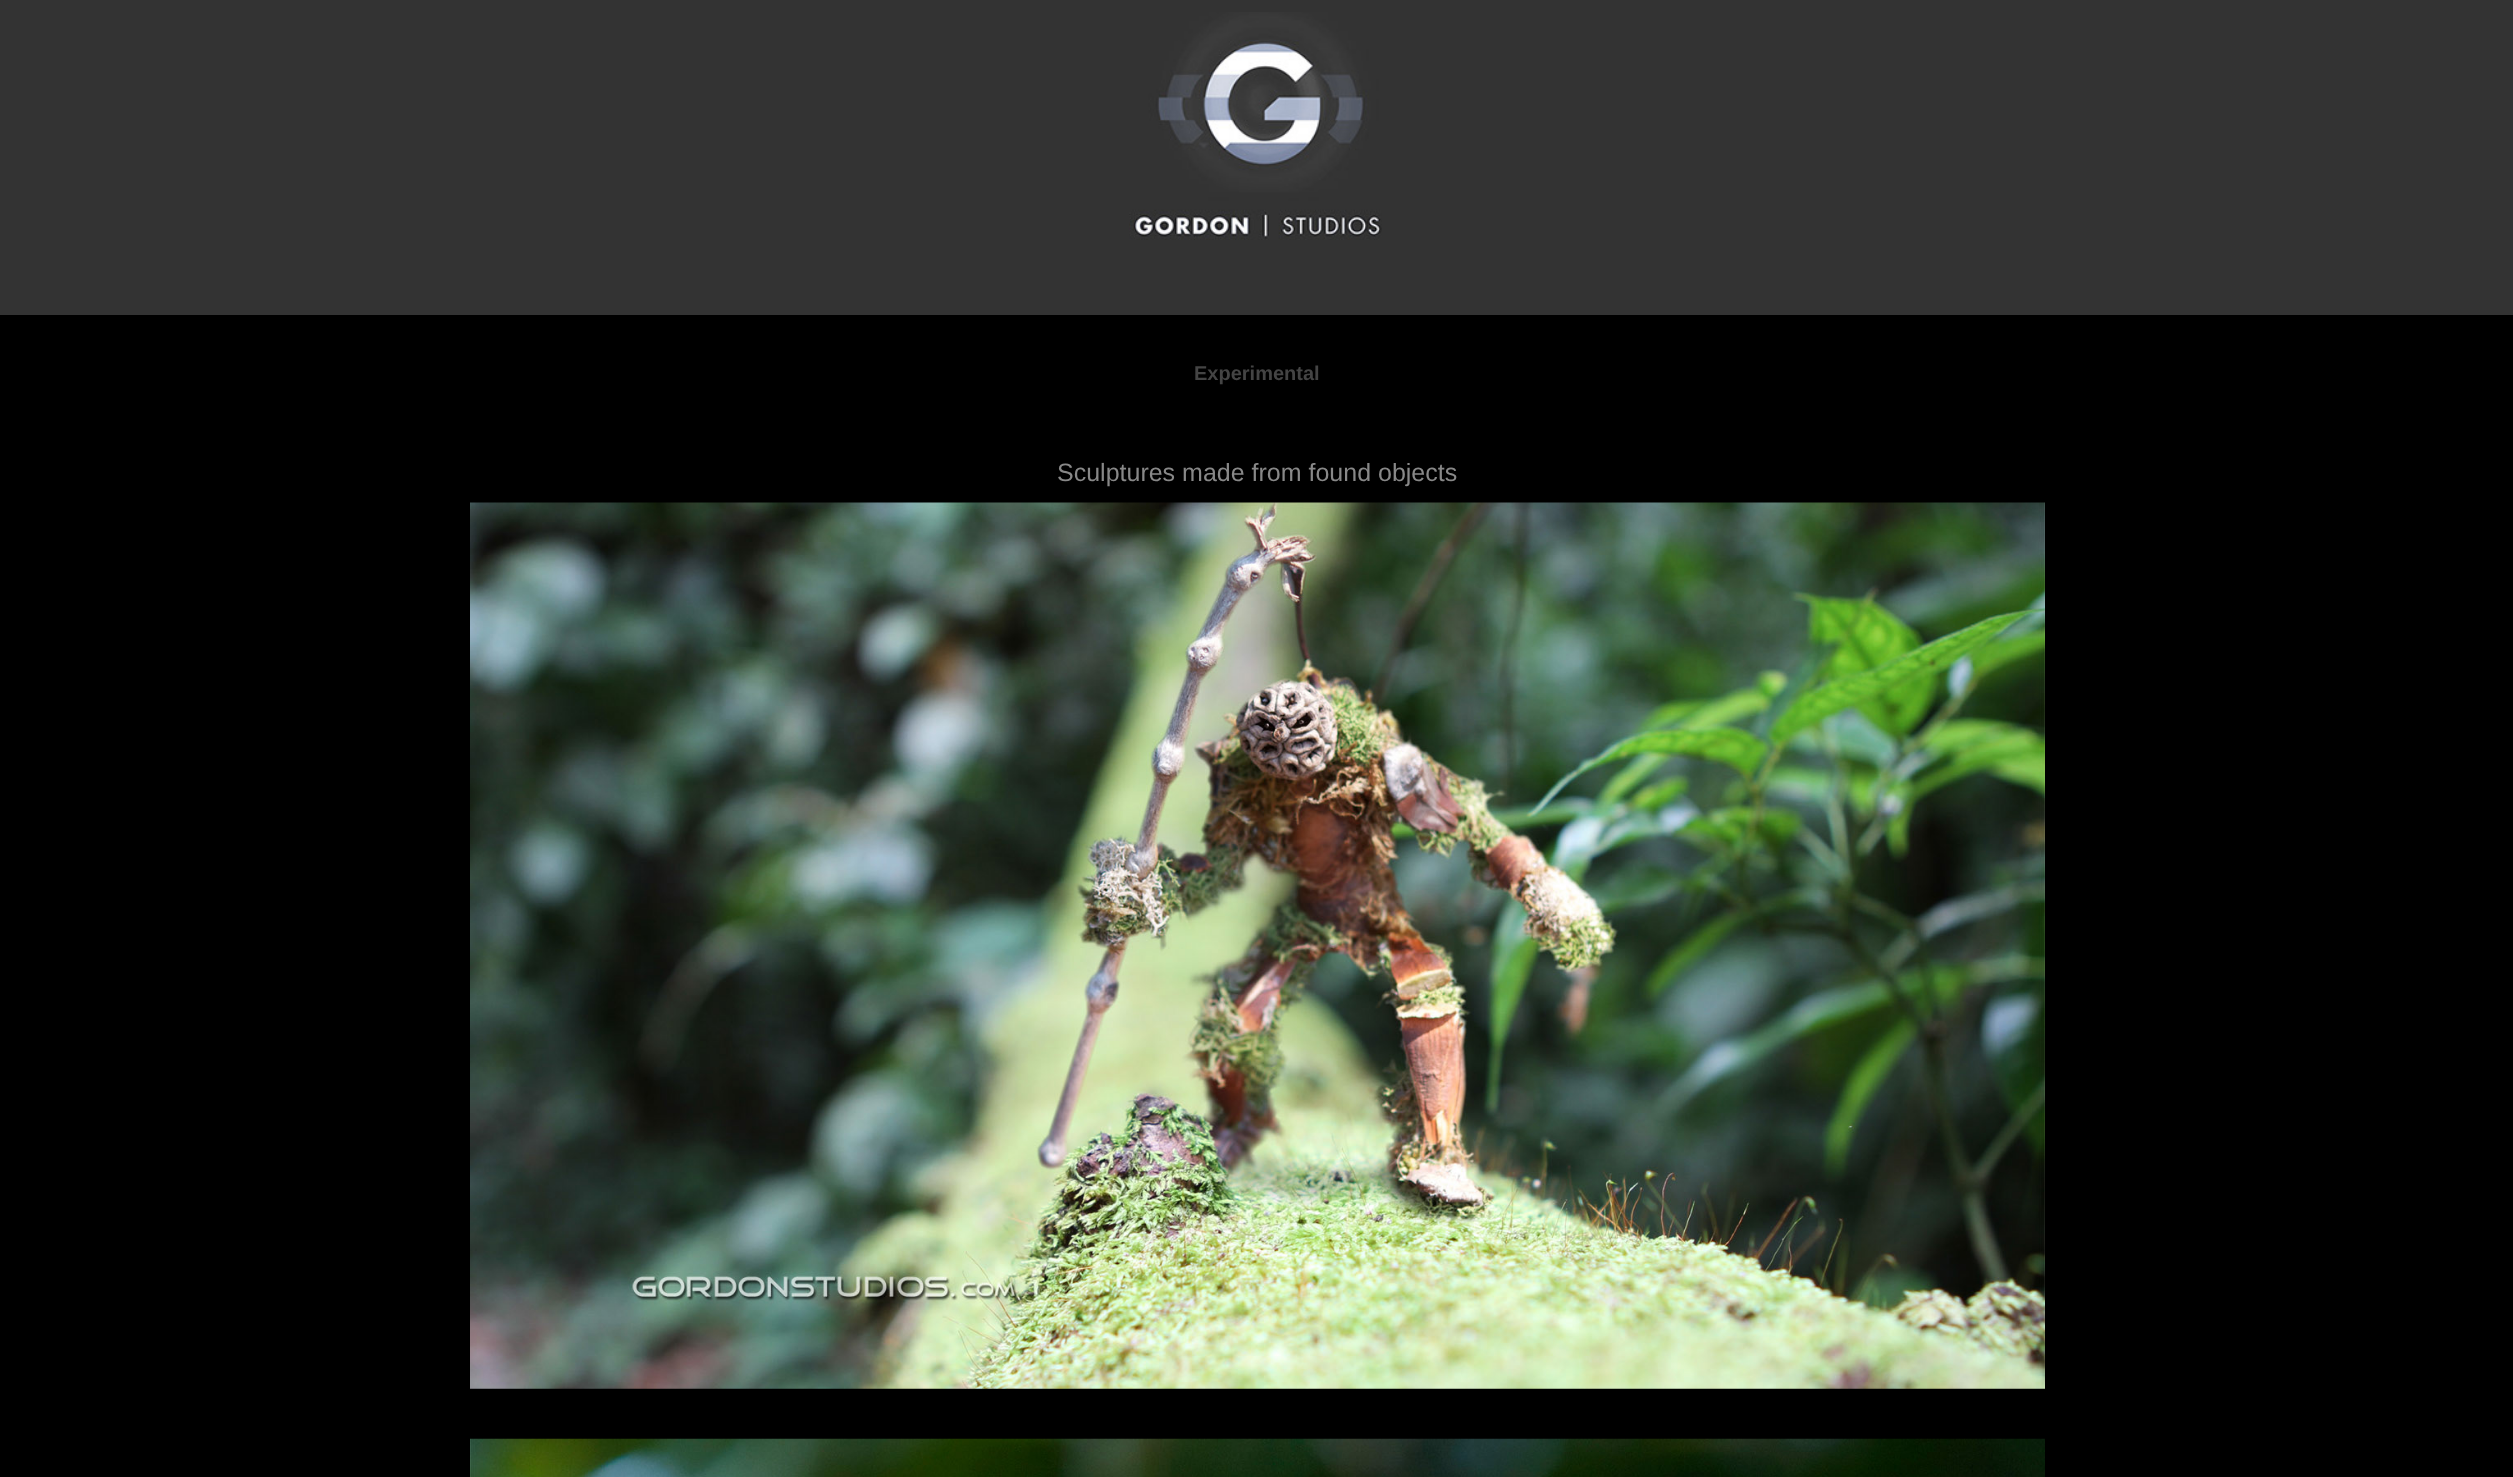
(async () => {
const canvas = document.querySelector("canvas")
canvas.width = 2513
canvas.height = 1477
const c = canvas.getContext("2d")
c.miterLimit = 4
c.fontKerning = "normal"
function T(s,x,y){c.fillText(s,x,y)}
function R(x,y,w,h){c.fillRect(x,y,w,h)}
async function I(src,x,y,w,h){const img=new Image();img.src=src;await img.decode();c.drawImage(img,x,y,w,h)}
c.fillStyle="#000"
R(0,0,2513,1477)
c.fillStyle="#333"
R(0,0,2513,315)
await I("1.png",1129,12,253,228)
c.font="bold 20px Liberation Sans"
c.fillStyle="#444"
T("Experimental",1194,380)
c.font="25px Liberation Sans"
c.fillStyle="#888"
T("Sculptures made from found objects",1057,481)
await I("2.png",470,502,1575,887)
await I("3.png",470,1438,1575,39)
})()
